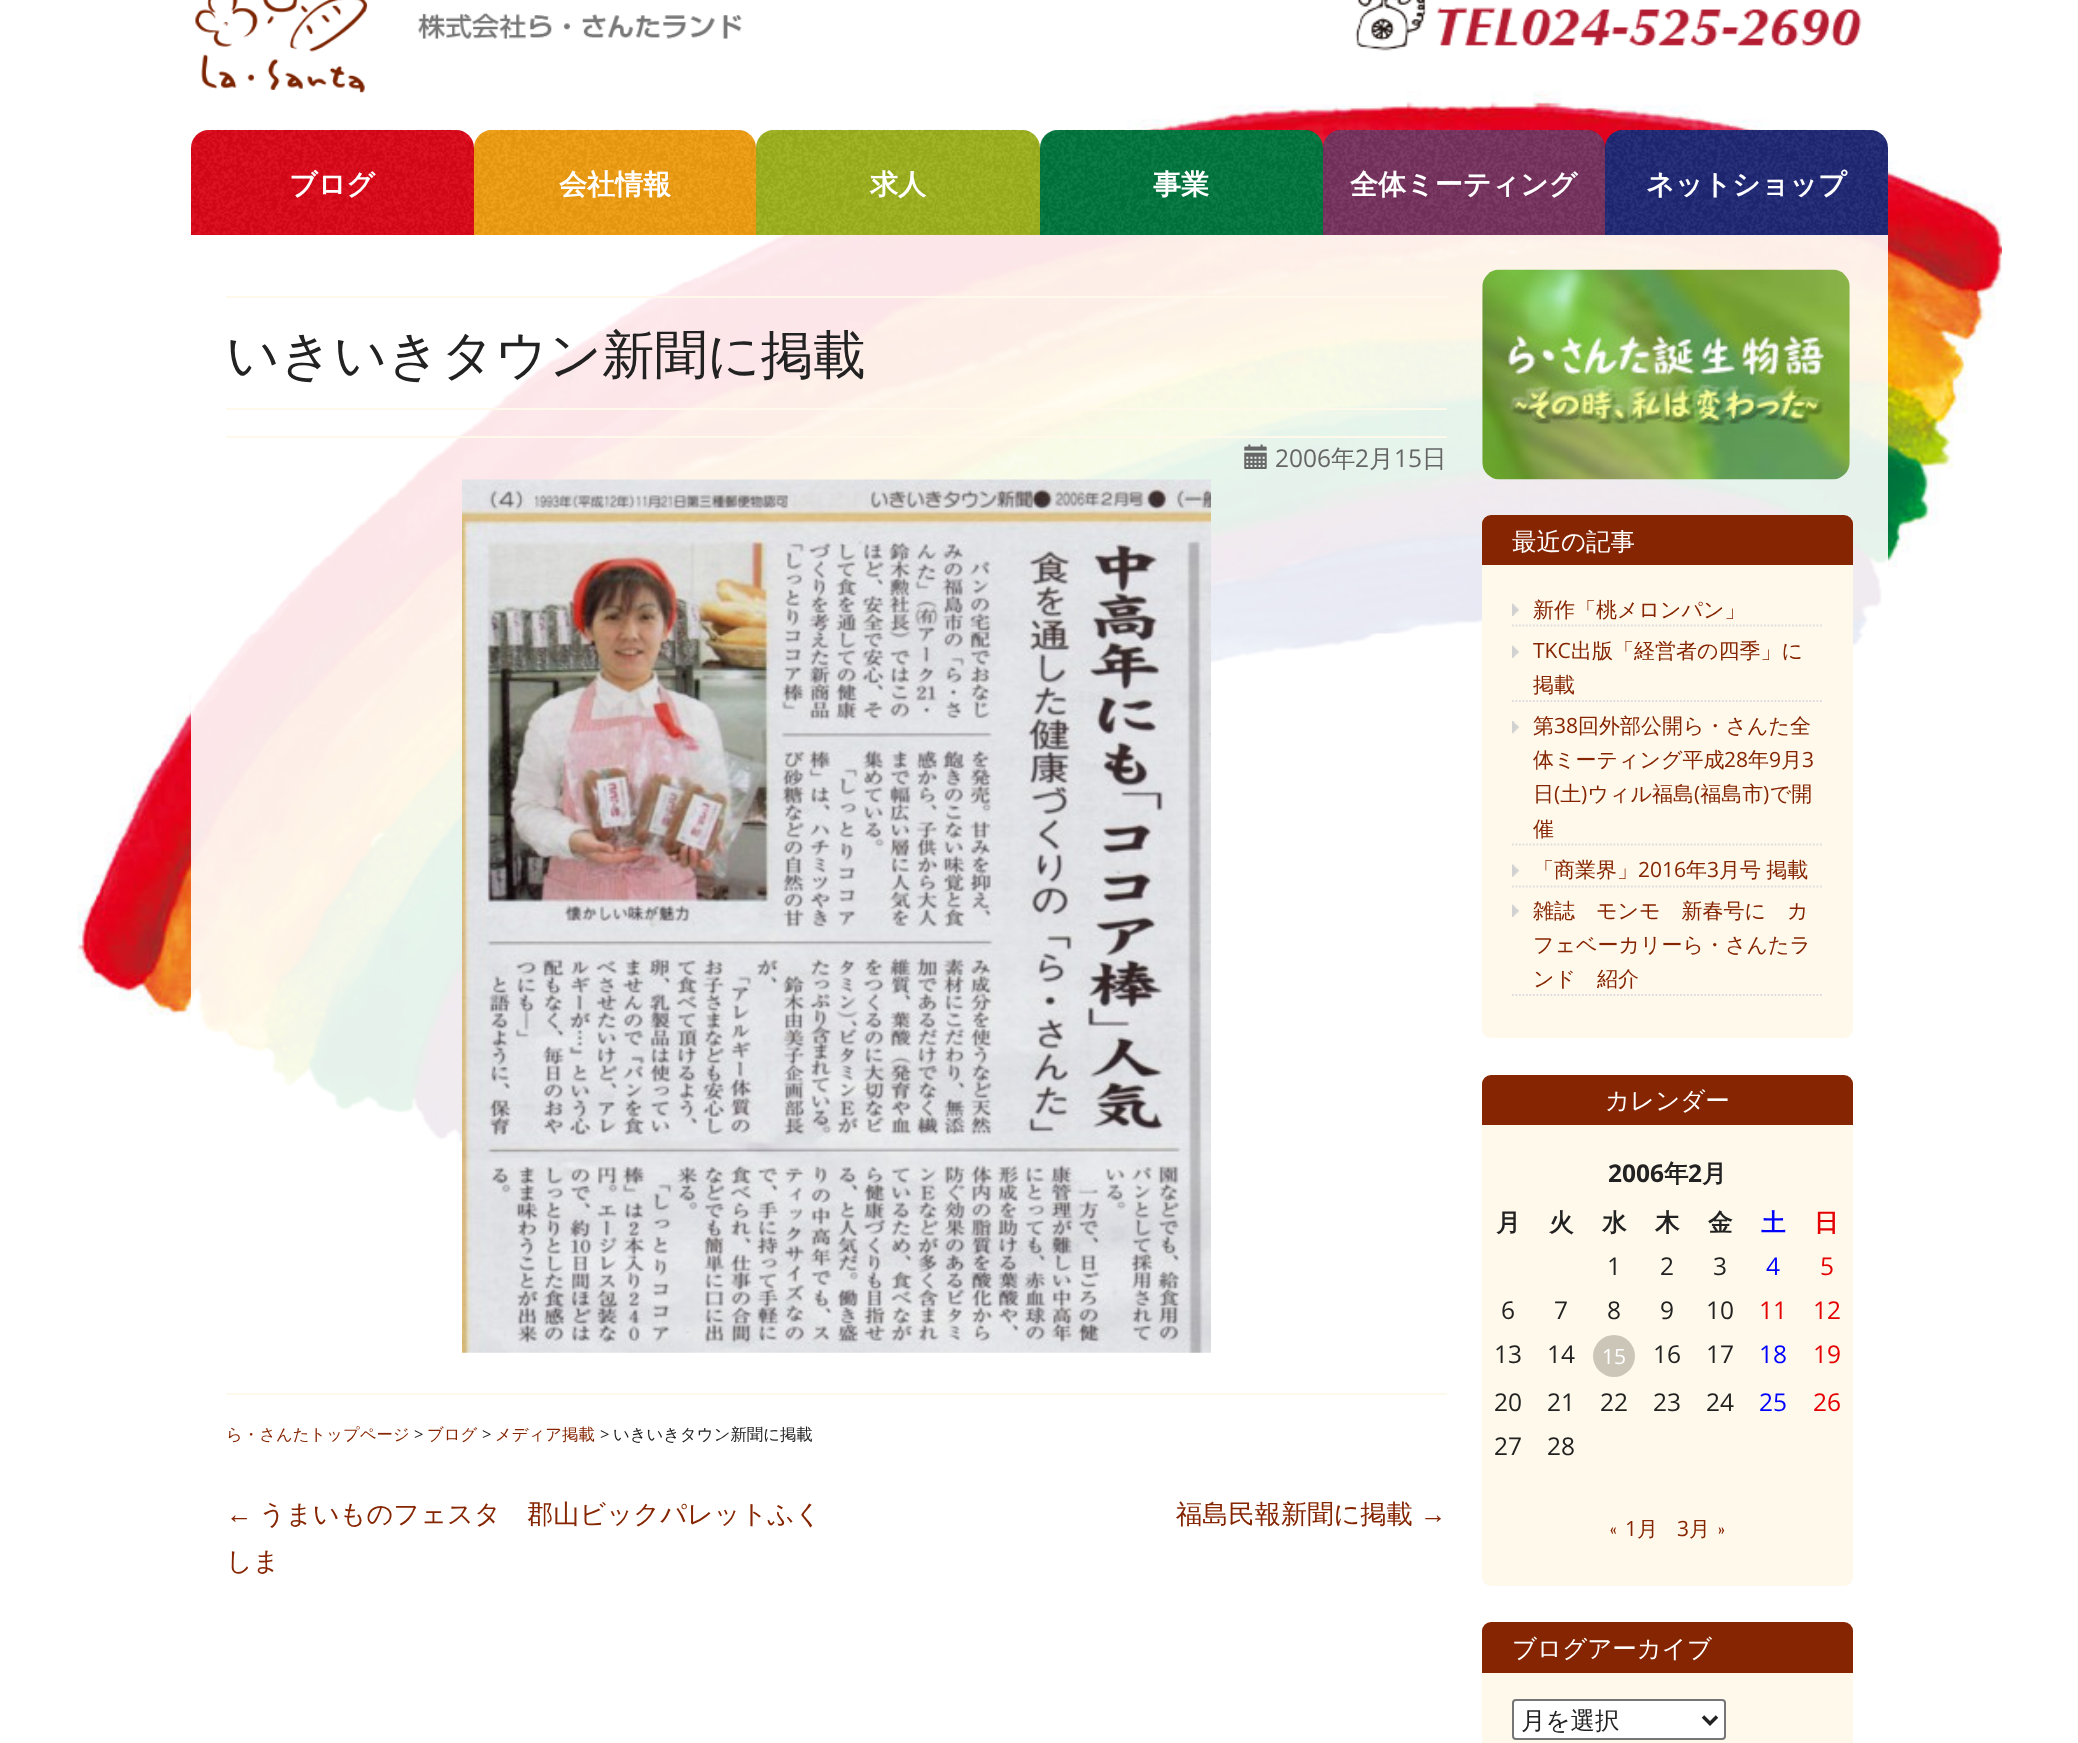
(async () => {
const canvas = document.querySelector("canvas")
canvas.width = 2078
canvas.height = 1743
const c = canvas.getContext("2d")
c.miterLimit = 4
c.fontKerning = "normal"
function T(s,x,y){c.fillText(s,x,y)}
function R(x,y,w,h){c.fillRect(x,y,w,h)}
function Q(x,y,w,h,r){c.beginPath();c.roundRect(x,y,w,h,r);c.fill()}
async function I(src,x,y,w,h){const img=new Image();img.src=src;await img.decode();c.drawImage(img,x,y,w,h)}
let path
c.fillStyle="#fff"
R(0,0,2078,1743)
await I("1.png",77,91,1925,1071)
await I("2.png",195,0,547,93)
await I("3.png",1355,0,507,51)
c.fillStyle="#dc0719"
c.beginPath()
c.roundRect(191,130,283,105,[18,18,0,0])
c.fill()
await I("4.png",191,129,283,106)
c.font="bold 28px WenQuanYi Zen Hei"
c.fillStyle="#fff"
T("ブログ",289,194)
c.fillStyle="#f19e10"
c.beginPath()
c.roundRect(474,130,282,105,[18,18,0,0])
c.fill()
await I("5.png",474,129,282,106)
c.fillStyle="#fff"
T("会社情報",559,194)
c.fillStyle="#9db11e"
c.beginPath()
c.roundRect(756,130,284,105,[18,18,0,0])
c.fill()
await I("6.png",756,129,284,106)
c.fillStyle="#fff"
T("求人",870,194)
c.fillStyle="#00753e"
c.beginPath()
c.roundRect(1040,130,283,105,[18,18,0,0])
c.fill()
await I("7.png",1039,129,284,106)
c.fillStyle="#fff"
T("事業",1153,194)
c.fillStyle="#75325d"
c.beginPath()
c.roundRect(1323,130,282,105,[18,18,0,0])
c.fill()
await I("8.png",1323,129,282,106)
c.fillStyle="#fff"
T("全体ミーティング",1350,194)
c.fillStyle="#1f2875"
c.beginPath()
c.roundRect(1605,130,283,105,[18,18,0,0])
c.fill()
await I("9.png",1605,129,283,106)
c.fillStyle="#fff"
T("ネットショップ",1646,194)
c.fillStyle="#ffffffe6"
R(191,235,1697,927)
c.fillStyle="#fff9eb"
R(226,296,1221,2)
R(226,408,1221,2)
c.font="500 52.5px WenQuanYi Zen Hei"
c.fillStyle="#222"
T("いきいきタウン新聞に掲載",226,373)
c.fillStyle="#fff9eb"
R(226,436,1221,2)
await I("10.png",1244,444,23,25)
c.font="24.5px Open Sans"
c.fillStyle="#666"
T("2006",1275,467)
c.font="500 24.5px WenQuanYi Zen Hei"
T("年",1331,467)
c.font="24.5px Open Sans"
T("2",1355,467)
c.font="500 24.5px WenQuanYi Zen Hei"
T("月",1369,467)
c.font="24.5px Open Sans"
T("15",1394,467)
c.font="500 24.5px WenQuanYi Zen Hei"
T("日",1422,467)
c.fillStyle="#fff9eb"
R(226,1393,1221,2)
await I("11.png",462,479,749,874)
c.font="500 16.4px WenQuanYi Zen Hei"
c.fillStyle="#852501"
T("ら・さんたトップページ",226,1440)
c.font="16.4px Open Sans"
c.fillStyle="#222"
T(">",414,1440)
c.font="500 16.4px WenQuanYi Zen Hei"
c.fillStyle="#852501"
T("ブログ",427,1440)
c.font="16.4px Open Sans"
c.fillStyle="#222"
T(">",482,1440)
c.font="500 16.4px WenQuanYi Zen Hei"
c.fillStyle="#852501"
T("メディア掲載",495,1440)
c.font="16.4px Open Sans"
c.fillStyle="#222"
T(">",600,1440)
c.font="500 16.4px WenQuanYi Zen Hei"
T("いきいきタウン新聞に掲載",613,1440)
c.font="26.25px Liberation Sans"
c.fillStyle="#852501"
T("←",226,1523)
c.font="500 26.25px WenQuanYi Zen Hei"
T("うまいものフェスタ　郡山ビックパレットふく",259,1523)
T("しま",226,1570)
T("福島民報新聞に掲載",1176,1523)
c.font="26.25px Liberation Sans"
T("→",1420,1523)
await I("12.png",1482,269,368,211)
c.fillStyle="#fff9eb"
Q(1482,515,371,523,9)
c.fillStyle="#852501"
c.beginPath()
c.roundRect(1482,515,371,50,[9,9,0,0])
c.fill()
c.font="500 24.5px WenQuanYi Zen Hei"
c.fillStyle="#fff"
T("最近の記事",1512,550)
await I("13.png",1512,603,7,13)
path = new Path2D("M1512 625.5h311.5")
c.strokeStyle="#ddd"
c.lineWidth=1.8
c.setLineDash([1.75,1.75])
c.stroke(path)
c.font="500 21px WenQuanYi Zen Hei"
c.fillStyle="#852501"
T("新作「桃メロンパン」",1533,617)
await I("13.png",1512,645,7,13)
path = new Path2D("M1512 701h311.5")
c.stroke(path)
c.font="21px Open Sans"
T("TKC",1533,658)
c.font="500 21px WenQuanYi Zen Hei"
T("出版「経営者の四季」に",1571,658)
T("掲載",1533,692)
await I("14.png",1512,721,7,13)
path = new Path2D("M1512 844.5h311.5")
c.stroke(path)
T("第",1533,733)
c.font="21px Open Sans"
T("38",1554,733)
c.font="500 21px WenQuanYi Zen Hei"
T("回外部公開ら・さんた全",1578,733)
T("体ミーティング平成",1533,767)
c.font="21px Open Sans"
T("28",1724,767)
c.font="500 21px WenQuanYi Zen Hei"
T("年",1748,767)
c.font="21px Open Sans"
T("9",1769,767)
c.font="500 21px WenQuanYi Zen Hei"
T("月",1781,767)
c.font="21px Open Sans"
T("3",1802,767)
c.font="500 21px WenQuanYi Zen Hei"
T("日 土 ウィル福島 福島市 で開",1533,801)
c.font="21px Open Sans"
T("(",1554,801)
T(")",1581,801)
T("(",1694,801)
T(")",1763,801)
c.font="500 21px WenQuanYi Zen Hei"
T("催",1533,836)
await I("15.png",1512,864,7,13)
path = new Path2D("M1512 886.5h311.5")
c.stroke(path)
T("「商業界」",1533,877)
c.font="21px Open Sans"
T("2016",1638,877)
c.font="500 21px WenQuanYi Zen Hei"
T("年",1686,877)
c.font="21px Open Sans"
T("3",1707,877)
c.wordSpacing="-1px"
c.font="500 21px WenQuanYi Zen Hei"
T("月号 掲載",1719,877)
await I("13.png",1512,904,7,13)
path = new Path2D("M1512 995h311.5")
c.stroke(path)
c.wordSpacing="0px"
T("雑誌　モンモ　新春号に　カ",1533,918)
T("フェベーカリーら・さんたラ",1533,952)
T("ンド　紹介",1533,986)
c.fillStyle="#fff9eb"
Q(1482,1075,371,511,9)
c.fillStyle="#852501"
c.beginPath()
c.roundRect(1482,1075,371,50,[9,9,0,0])
c.fill()
c.font="500 24.5px WenQuanYi Zen Hei"
c.fillStyle="#fff"
T("カレンダー",1605,1109)
c.font="bold 24.5px Open Sans"
c.fillStyle="#222"
T("2006",1608,1182)
c.font="bold 24.5px WenQuanYi Zen Hei"
T("年",1664,1182)
c.font="bold 24.5px Open Sans"
T("2",1688,1182)
c.font="bold 24.5px WenQuanYi Zen Hei"
T("月",1702,1182)
T("月",1496,1231)
T("火",1549,1231)
T("水",1602,1231)
T("木",1655,1231)
T("金",1708,1231)
c.fillStyle="#00f"
T("土",1761,1231)
c.fillStyle="#e50003"
T("日",1814,1231)
c.font="24.5px Open Sans"
c.fillStyle="#222"
T("1",1607,1275)
T("2",1660,1275)
T("3",1713,1275)
c.fillStyle="#00f"
T("4",1766,1275)
c.fillStyle="#e50003"
T("5",1820,1275)
c.fillStyle="#222"
T("6",1501,1319)
T("7",1554,1319)
T("8",1607,1319)
T("9",1660,1319)
T("10",1706,1319)
c.fillStyle="#e50003"
T("11",1759,1319)
T("12",1813,1319)
c.fillStyle="#222"
T("13",1494,1363)
T("14",1547,1363)
c.fillStyle="#ccc6b8"
c.beginPath()
c.arc(1614,1356,21,0,7)
c.fill()
c.font="21px Open Sans"
c.fillStyle="#fff"
T("15",1602,1364)
c.font="24.5px Open Sans"
c.fillStyle="#222"
T("16",1653,1363)
T("17",1706,1363)
c.fillStyle="#00f"
T("18",1759,1363)
c.fillStyle="#e50003"
T("19",1813,1363)
c.fillStyle="#222"
T("20",1494,1411)
T("21",1547,1411)
T("22",1600,1411)
T("23",1653,1411)
T("24",1706,1411)
c.fillStyle="#00f"
T("25",1759,1411)
c.fillStyle="#e50003"
T("26",1813,1411)
c.fillStyle="#222"
T("27",1494,1455)
T("28",1547,1455)
c.font="500 21px WenQuanYi Zen Hei"
c.fillStyle="#852501"
T("«",1609,1536)
c.font="21px Open Sans"
T("1",1625,1536)
c.font="500 21px WenQuanYi Zen Hei"
T("月",1637,1536)
c.font="21px Open Sans"
T("3",1677,1536)
c.wordSpacing="1px"
c.font="500 21px WenQuanYi Zen Hei"
T("月 »",1689,1536)
c.fillStyle="#fff9eb"
Q(1482,1622,371,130,9)
c.fillStyle="#852501"
c.beginPath()
c.roundRect(1482,1622,371,51,[9,9,0,0])
c.fill()
c.wordSpacing="0px"
c.font="500 24.5px WenQuanYi Zen Hei"
c.fillStyle="#fff"
T("ブログアーカイブ",1512,1657)
c.beginPath()
c.roundRect(1513,1700,212,39,3)
c.fill()
c.strokeStyle="#767676"
c.lineWidth=2
c.setLineDash([])
c.stroke()
path = new Path2D("M1703 1716.5l7 7l7-7")
c.strokeStyle="#222"
c.lineWidth=3.5
c.stroke(path)
c.fillStyle="#222"
T("月を選択",1521,1729)
})()
